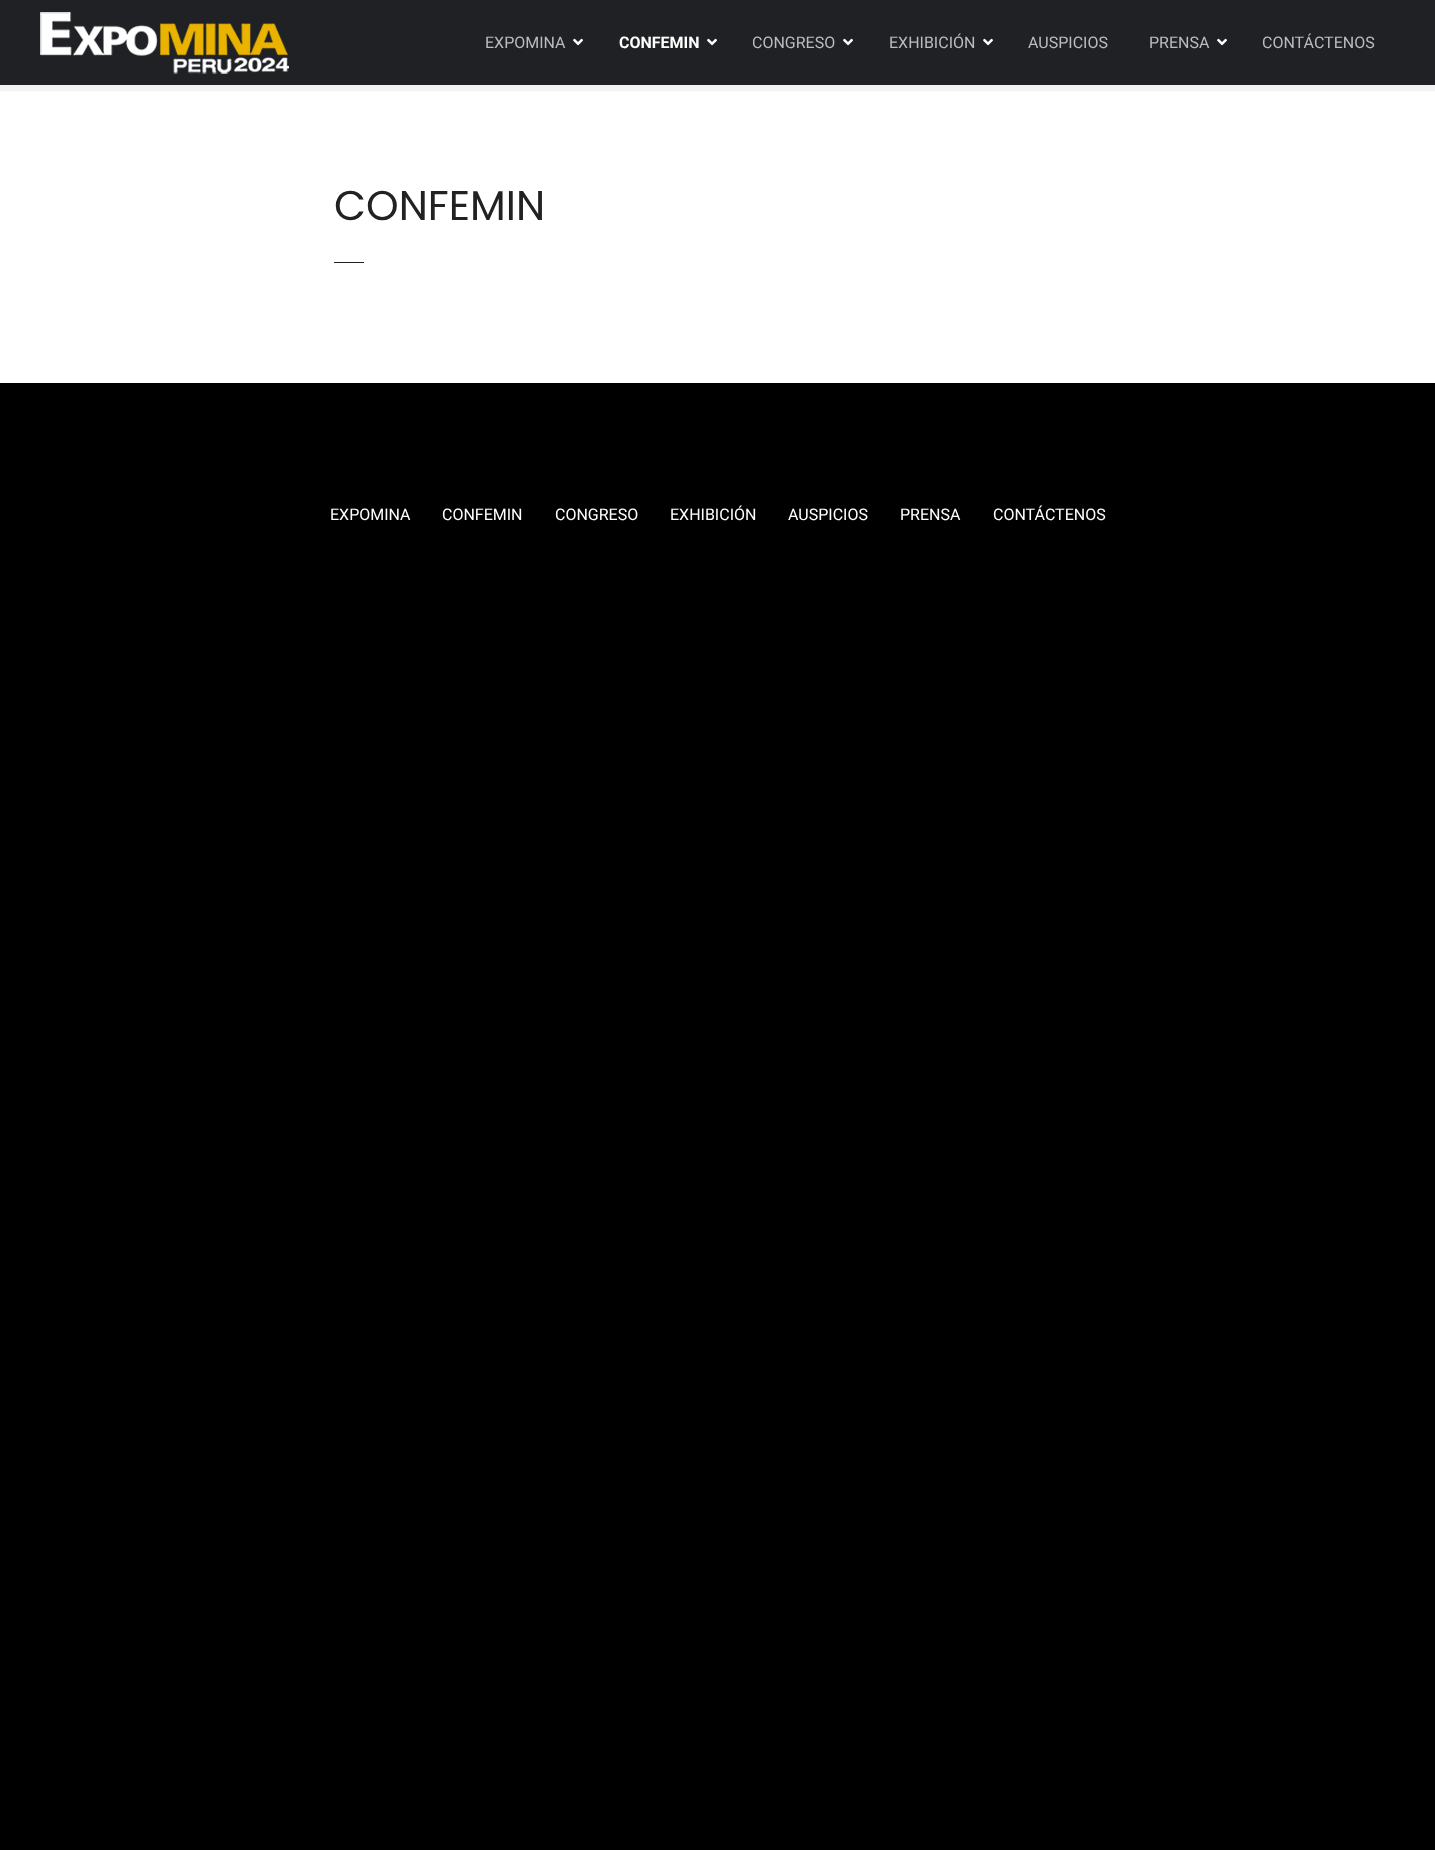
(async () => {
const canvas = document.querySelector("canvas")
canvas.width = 1435
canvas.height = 1850
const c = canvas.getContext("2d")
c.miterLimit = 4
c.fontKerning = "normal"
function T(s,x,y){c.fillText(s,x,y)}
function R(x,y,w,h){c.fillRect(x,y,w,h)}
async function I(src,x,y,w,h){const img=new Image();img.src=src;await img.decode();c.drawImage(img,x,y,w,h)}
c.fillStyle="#000"
R(0,0,1435,1850)
c.fillStyle="#fff"
R(0,91,1435,292)
c.fillStyle="#1f2125"
R(0,0,1435,85)
await I("1.png",40,12,249,62)
c.font="16px Roboto"
c.fillStyle="#bcbcbe"
T("EXPOMINA",485,48)
await I("2.png",573,38,10,8)
c.font="bold 16px Roboto"
c.fillStyle="#fff"
T("CONFEMIN",619,48)
await I("2.png",707,38,10,8)
c.font="16px Roboto"
c.fillStyle="#bcbcbe"
T("CONGRESO",752,48)
await I("2.png",843,38,10,8)
T("EXHIBICIÓN",889,48)
await I("2.png",983,38,10,8)
T("AUSPICIOS",1028,48)
T("PRENSA",1149,48)
await I("2.png",1217,38,10,8)
T("CONTÁCTENOS",1262,48)
c.fillStyle="#f2f2f2"
R(0,85,1435,6)
c.font="41.5px Poppins"
c.fillStyle="#222"
T("CONFEMIN",334,220)
R(334,262,30,1)
c.font="16px Roboto"
c.fillStyle="#fff"
T("EXPOMINA",330,520)
T("CONFEMIN",442,520)
T("CONGRESO",555,520)
T("EXHIBICIÓN",670,520)
T("AUSPICIOS",788,520)
T("PRENSA",900,520)
T("CONTÁCTENOS",993,520)
})()
